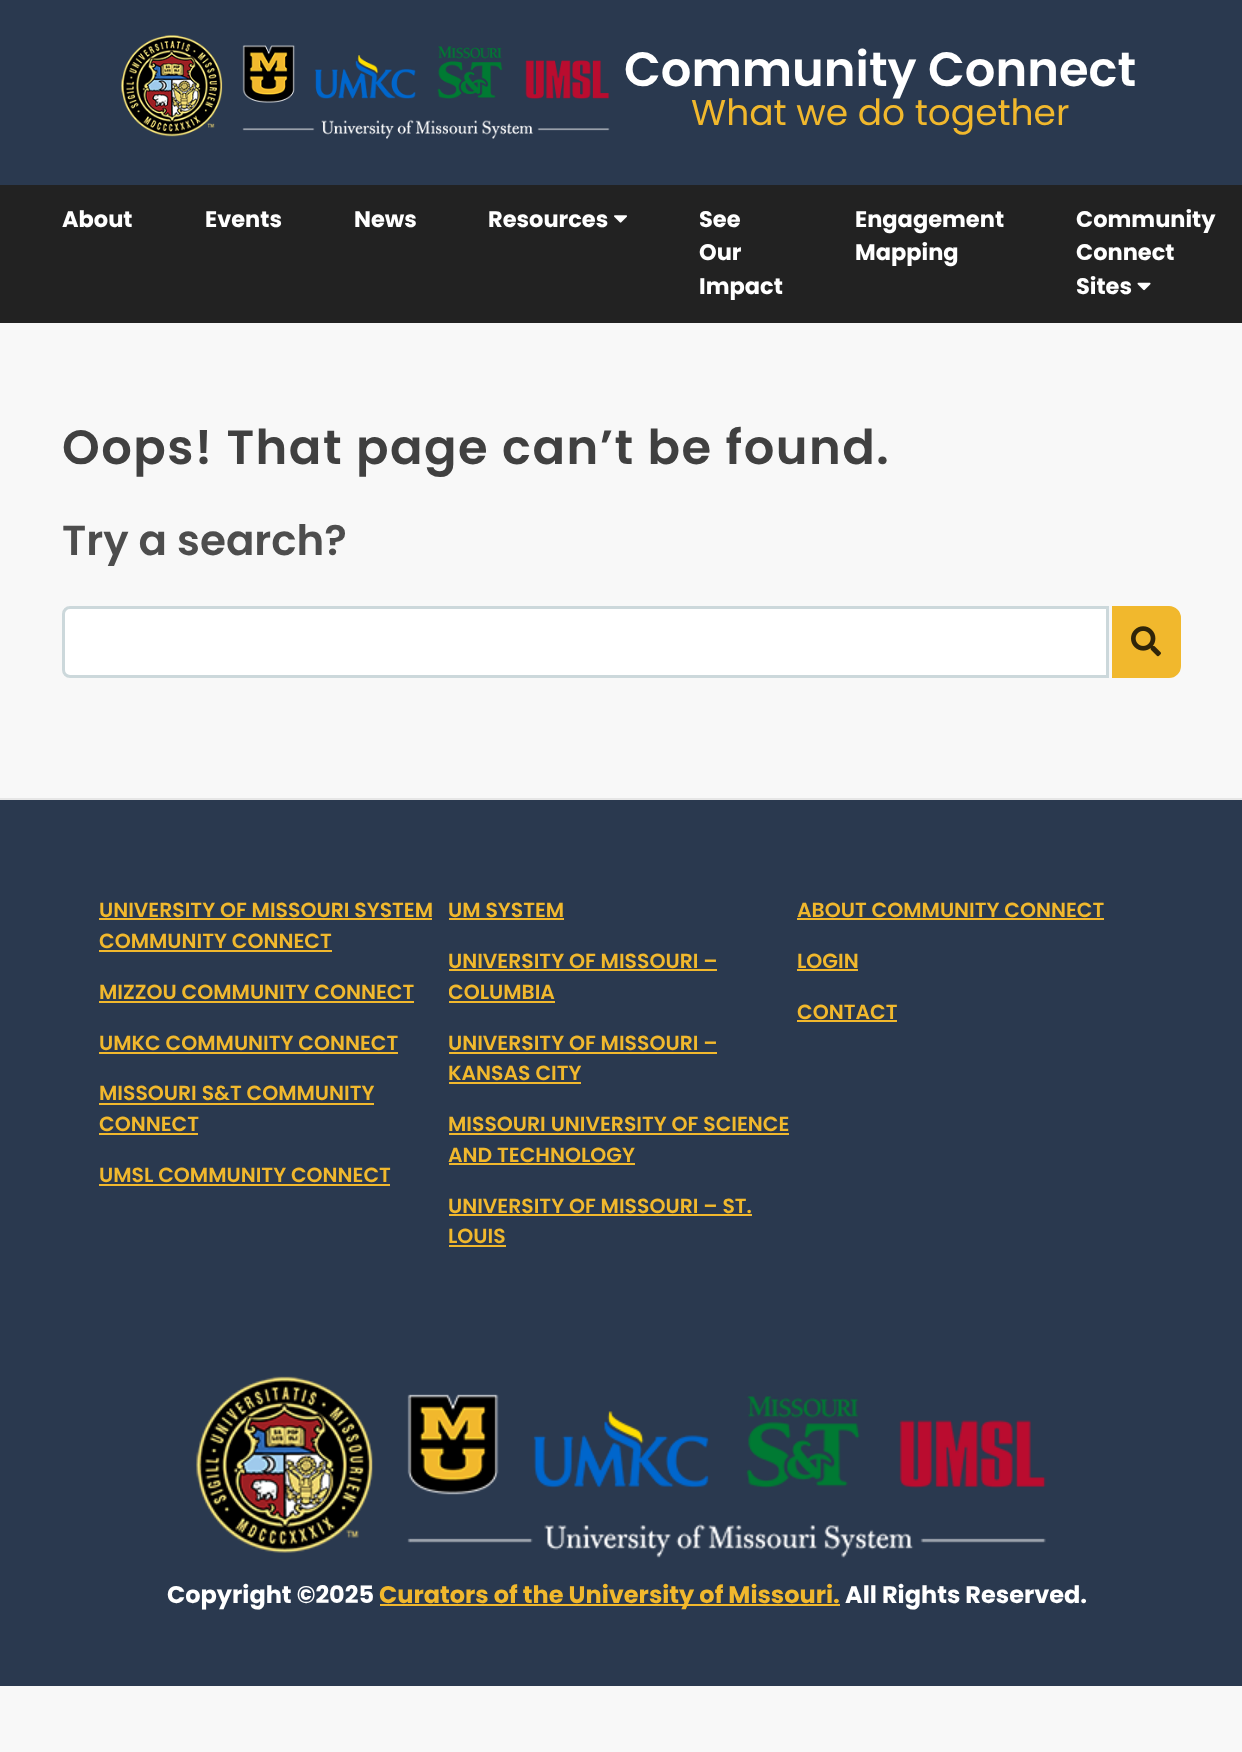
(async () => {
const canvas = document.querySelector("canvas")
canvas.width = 1242
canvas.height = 1752
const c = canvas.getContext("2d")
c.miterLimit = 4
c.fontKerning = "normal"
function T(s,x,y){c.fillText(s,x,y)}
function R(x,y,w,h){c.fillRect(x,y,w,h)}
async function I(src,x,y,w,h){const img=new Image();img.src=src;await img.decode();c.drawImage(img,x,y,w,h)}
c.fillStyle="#f8f8f8"
R(0,0,1242,1752)
c.fillStyle="#2a394f"
R(0,0,1242,185)
await I("1.png",121,35,489,104)
c.font="600 48px Poppins"
c.fillStyle="#fff"
T("Community Connect",624,86)
c.font="36px Poppins"
c.fillStyle="#f1b82d"
T("What we do together",691,125)
c.fillStyle="#222"
R(0,185,1242,138)
c.font="bold 22.5px Poppins"
c.fillStyle="#fff"
T("About",62,227)
T("Events",205,227)
T("News",354,227)
T("Resources",488,227)
await I("2.png",614,215,13,8)
T("See",699,227)
T("Our",699,260)
T("Impact",699,294)
T("Engagement",855,227)
T("Mapping",855,260)
T("Community",1076,227)
T("Connect",1076,260)
T("Sites",1076,294)
await I("3.png",1137,282,14,9)
c.letterSpacing="1.5px"
c.font="600 48px Poppins"
c.fillStyle="#404040"
T("Oops! That page can’t be found.",62,464)
c.letterSpacing="0px"
c.font="600 42px Poppins"
c.fillStyle="#4d4d4d"
T("Try a search?",62,555)
c.fillStyle="#fff"
c.beginPath()
c.roundRect(62,606,1047,72,[8,0,0,8])
c.fill()
c.beginPath()
c.roundRect(63.5,607.5,1044,69,[6.5,0,0,6.5])
c.strokeStyle="#003b4933"
c.lineWidth=3
c.stroke()
c.fillStyle="#f1b82d"
c.beginPath()
c.roundRect(1113,607,67,70,[0,11,11,0])
c.fill()
c.strokeStyle="#f1b82d"
c.lineWidth=2
c.stroke()
await I("4.png",1131,626,30,31)
c.fillStyle="#2a394f"
R(0,800,1242,886)
c.fillStyle="#e6e6e6"
R(0,798,1242,2)
c.font="600 20.4px Poppins"
c.fillStyle="#f1b82d"
T("UNIVERSITY OF MISSOURI SYSTEM",99,917)
R(99,918,333,2)
T("COMMUNITY CONNECT",99,948)
R(99,950,233,2)
T("MIZZOU COMMUNITY CONNECT",99,999)
R(99,1001,315,2)
T("UMKC COMMUNITY CONNECT",99,1050)
R(99,1052,299,2)
T("MISSOURI S&T COMMUNITY",99,1100)
R(99,1103,275,2)
T("CONNECT",99,1131)
R(99,1133,99,2)
T("UMSL COMMUNITY CONNECT",99,1182)
R(99,1184,291,2)
T("UM SYSTEM",448,917)
R(449,918,115,2)
T("UNIVERSITY OF MISSOURI –",448,968)
R(449,969,268,2)
c.save()
c.beginPath()
c.rect(449,896,346,378)
c.clip()
T("COLUMBIA",448,999)
c.restore()
R(449,1001,106,2)
T("UNIVERSITY OF MISSOURI –",448,1050)
R(449,1052,268,2)
T("KANSAS CITY",448,1080)
R(449,1082,132,2)
T("MISSOURI UNIVERSITY OF SCIENCE",448,1131)
R(449,1133,340,2)
T("AND TECHNOLOGY",448,1162)
R(449,1163,186,2)
T("UNIVERSITY OF MISSOURI – ST.",448,1213)
R(449,1214,303,2)
T("LOUIS",448,1243)
R(449,1245,57,2)
T("ABOUT COMMUNITY CONNECT",797,917)
R(797,918,307,2)
T("LOGIN",797,968)
R(797,969,61,2)
T("CONTACT",797,1019)
R(797,1020,100,2)
await I("5.png",196,1376,850,182)
c.font="bold 24px Poppins"
c.fillStyle="#fff"
T("Copyright ©2025",167,1603)
c.fillStyle="#f1b82d"
R(380,1604,460,2)
T("Curators of the University of Missouri.",379,1603)
c.fillStyle="#fff"
T("All Rights Reserved.",845,1603)
})()
